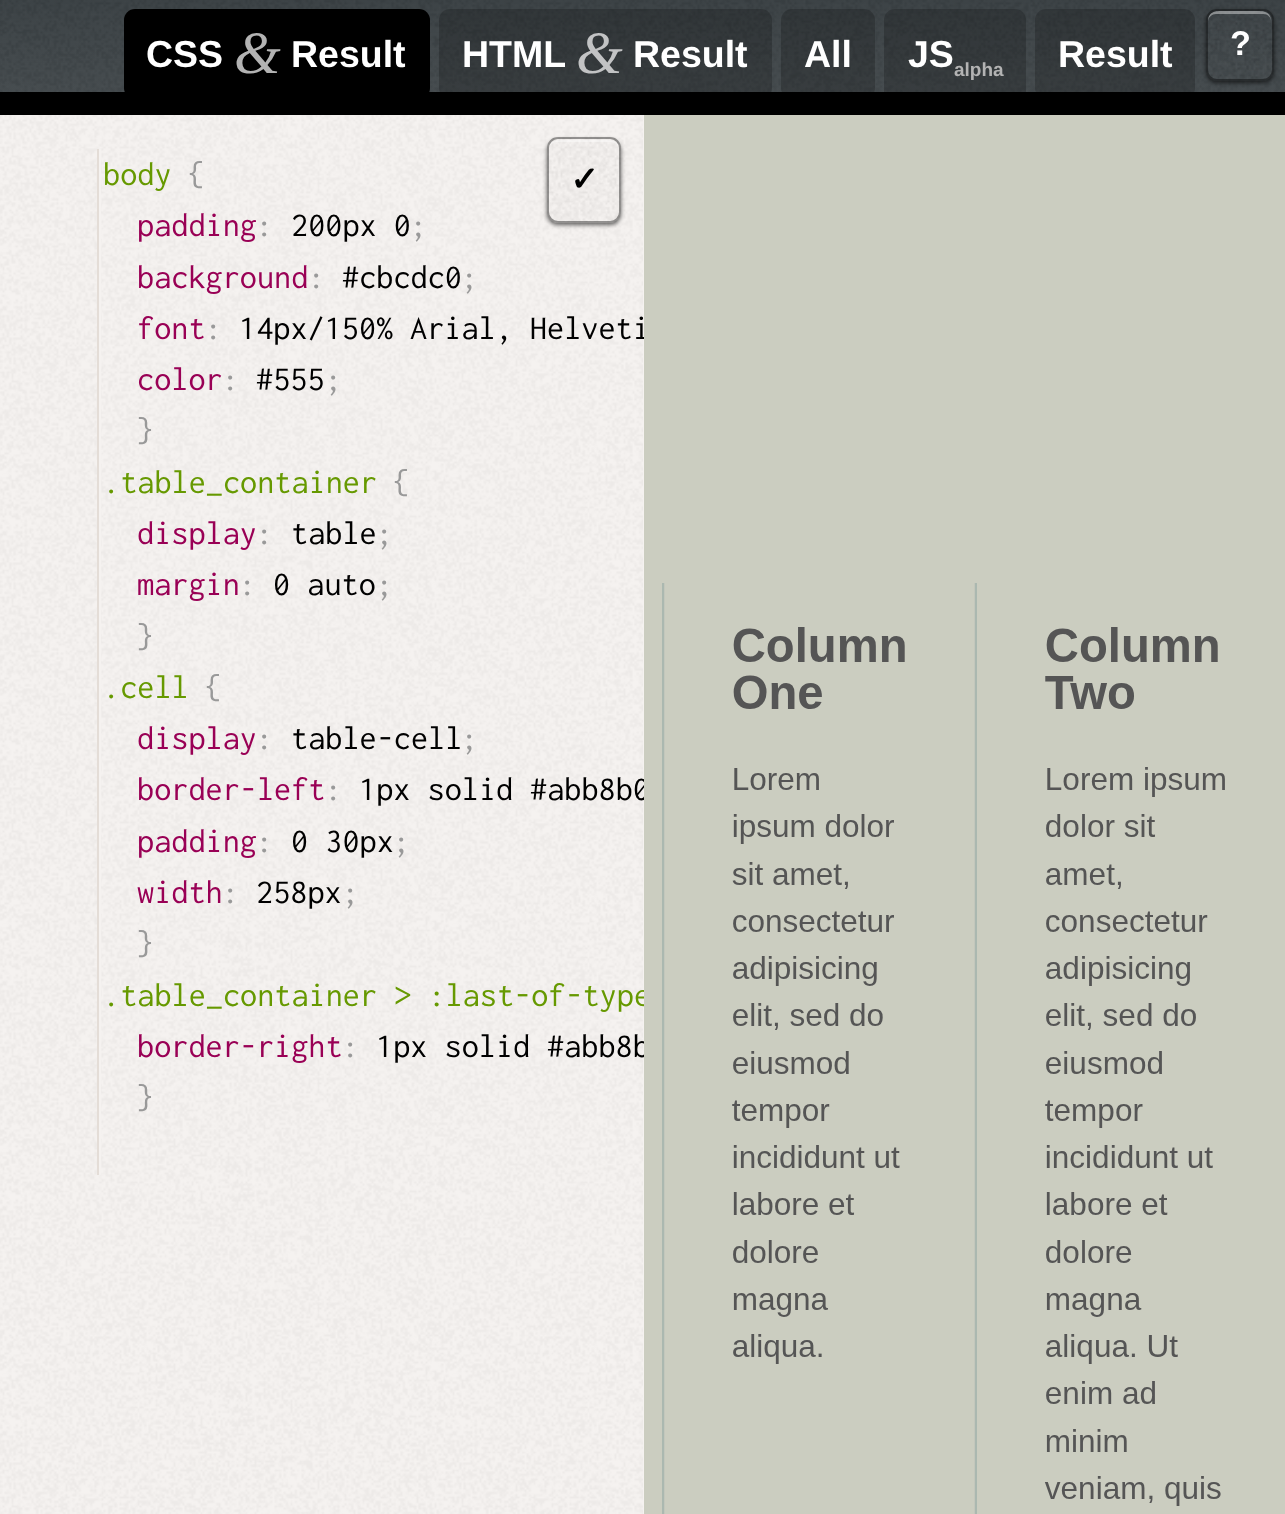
(async () => {
const canvas = document.querySelector("canvas")
canvas.width = 1285
canvas.height = 1514
const c = canvas.getContext("2d")
c.miterLimit = 4
c.fontKerning = "normal"
function T(s,x,y){c.fillText(s,x,y)}
function R(x,y,w,h){c.fillRect(x,y,w,h)}
function Q(x,y,w,h,r){c.beginPath();c.roundRect(x,y,w,h,r);c.fill()}
async function I(src,x,y,w,h){const img=new Image();img.src=src;await img.decode();c.drawImage(img,x,y,w,h)}
let path
c.fillStyle="#fff"
R(0,0,1285,1514)
await I("1.png",0,0,1285,92)
c.fillStyle="#000"
R(0,92,1285,23)
Q(124,9,306,90,11)
c.font="bold 37.5px Liberation Sans"
c.fillStyle="#fff"
T("CSS",146,67)
c.font="italic 60px Liberation Serif"
c.fillStyle="#b3b3b3"
T("&",234,73)
c.font="bold 37.5px Liberation Sans"
c.fillStyle="#fff"
T("Result",291,67)
c.fillStyle="#00000033"
Q(439,9,333,90,11)
c.fillStyle="#fff"
T("HTML",462,67)
c.font="italic 60px Liberation Serif"
c.fillStyle="#c2c3c4"
T("&",576,73)
c.font="bold 37.5px Liberation Sans"
c.fillStyle="#fff"
T("Result",633,67)
c.fillStyle="#00000033"
Q(781,9,94,90,11)
c.fillStyle="#fff"
T("All",804,67)
c.fillStyle="#00000033"
Q(884,9,142,95,11)
c.fillStyle="#fff"
T("JS",908,67)
c.font="bold 19px Liberation Sans"
c.fillStyle="#b3b3b3"
T("alpha",954,76)
c.fillStyle="#00000033"
Q(1035,9,160,90,11)
c.font="bold 37.5px Liberation Sans"
c.fillStyle="#fff"
T("Result",1058,67)
c.save()
path = new Path2D("M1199 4h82v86h-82zm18 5h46c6 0 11 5 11 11v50c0 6-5 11-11 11h-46c-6 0-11-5-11-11v-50c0-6 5-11 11-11z")
c.clip(path,"evenodd")
c.fillStyle="#00000099"
c.filter="blur(2px)"
c.beginPath()
c.roundRect(1206,11,68,72,11)
c.fill()
c.filter="none"
c.restore()
await I("2.png",1206,9,67,70)
c.fillStyle="#ffffff66"
path = new Path2D("M1216 14h47c5 0 8 3 8 8c0-11-7-11-17-11h-30c-9 0-16 0-16 11c0-5 4-8 8-8z")
c.fill(path)
c.beginPath()
c.roundRect(1207,10,66,70,10)
c.strokeStyle="#00000066"
c.lineWidth=2
c.stroke()
c.font="bold 34.25px Liberation Sans"
c.fillStyle="#fff"
T("?",1230,55)
c.fillStyle="#f5f2f0"
R(0,115,644,1399)
await I("3.png",0,115,643,1399)
c.fillStyle="#e4ddd7"
R(97,149,2,1026)
c.fillStyle="#f5f2f0"
Q(99,149,2,1026,1)
c.font="34.25px Inconsolata"
c.fillStyle="#690"
T("body",103,185)
c.fillStyle="#999"
T("{",188,185)
c.fillStyle="#905"
T("padding",137,236)
c.fillStyle="#999"
T(":",256,236)
c.fillStyle="#000"
T("200px 0",291,236)
c.fillStyle="#999"
T(";",410,236)
c.fillStyle="#905"
T("background",137,288)
c.fillStyle="#999"
T(":",308,288)
c.fillStyle="#000"
T("#cbcdc0",342,288)
c.fillStyle="#999"
T(";",461,288)
c.fillStyle="#905"
T("font",137,339)
c.fillStyle="#999"
T(":",205,339)
c.fillStyle="#000"
T("14px/150%",239,339)
c.save()
c.beginPath()
c.rect(0,115,644,1399)
c.clip()
T("Arial, Helveti",410,339)
c.restore()
c.fillStyle="#905"
T("color",137,390)
c.fillStyle="#999"
T(":",222,390)
c.fillStyle="#000"
T("#555",256,390)
c.fillStyle="#999"
T(";",325,390)
T("}",137,441)
c.fillStyle="#690"
T(".table_container",103,493)
c.fillStyle="#999"
T("{",393,493)
c.fillStyle="#905"
T("display",137,544)
c.fillStyle="#999"
T(":",256,544)
c.fillStyle="#000"
T("table",291,544)
c.fillStyle="#999"
T(";",376,544)
c.fillStyle="#905"
T("margin",137,595)
c.fillStyle="#999"
T(":",239,595)
c.fillStyle="#000"
T("0 auto",273,595)
c.fillStyle="#999"
T(";",376,595)
T("}",137,647)
c.fillStyle="#690"
T(".cell",103,698)
c.fillStyle="#999"
T("{",205,698)
c.fillStyle="#905"
T("display",137,749)
c.fillStyle="#999"
T(":",256,749)
c.fillStyle="#000"
T("table-cell",291,749)
c.fillStyle="#999"
T(";",461,749)
c.fillStyle="#905"
T("border-left",137,800)
c.fillStyle="#999"
T(":",325,800)
c.fillStyle="#000"
T("1px solid",359,800)
c.save()
c.beginPath()
c.rect(0,115,644,1399)
c.clip()
T("#abb8b0",530,800)
c.restore()
c.fillStyle="#905"
T("padding",137,852)
c.fillStyle="#999"
T(":",256,852)
c.fillStyle="#000"
T("0 30px",291,852)
c.fillStyle="#999"
T(";",393,852)
c.fillStyle="#905"
T("width",137,903)
c.fillStyle="#999"
T(":",222,903)
c.fillStyle="#000"
T("258px",256,903)
c.fillStyle="#999"
T(";",342,903)
T("}",137,954)
c.save()
c.beginPath()
c.rect(0,115,644,1399)
c.clip()
c.fillStyle="#690"
T(".table_container > :last-of-type",103,1006)
c.restore()
c.fillStyle="#905"
T("border-right",137,1057)
c.fillStyle="#999"
T(":",342,1057)
c.fillStyle="#000"
T("1px solid",376,1057)
c.save()
c.beginPath()
c.rect(0,115,644,1399)
c.clip()
T("#abb8b",547,1057)
c.restore()
c.fillStyle="#999"
T("}",137,1108)
await I("4.png",644,115,641,1399)
c.save()
path = new Path2D("M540 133h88v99h-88zm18 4h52c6 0 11 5 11 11v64c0 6-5 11-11 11h-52c-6 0-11-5-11-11v-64c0-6 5-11 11-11z")
c.clip(path,"evenodd")
c.fillStyle="#00000099"
c.filter="blur(2px)"
c.beginPath()
c.roundRect(547,140,74,85,11)
c.fill()
c.filter="none"
c.restore()
await I("5.png",547,138,74,84)
c.fillStyle="#ffffff66"
path = new Path2D("M557 142h54c4 0 8 3 8 8c0-11-9-10-18-10h-34c-9 0-18-1-18 10c0-5 4-8 8-8z")
c.fill(path)
c.beginPath()
c.roundRect(548,138,72,84,10)
c.stroke()
c.font="bold 34.25px DejaVu Sans"
c.fillStyle="#000"
T("✓",570,191)
})()
